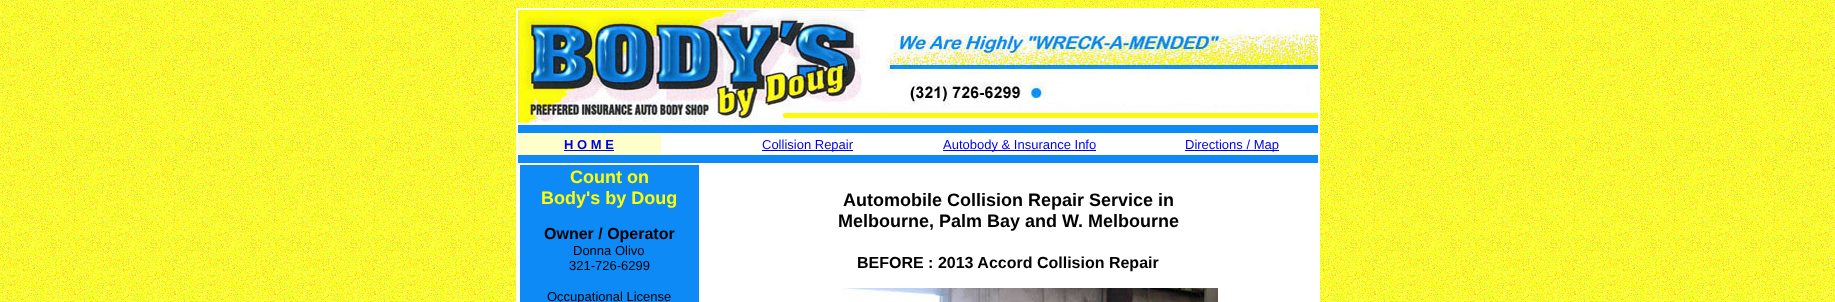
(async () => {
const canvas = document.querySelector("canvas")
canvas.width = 1835
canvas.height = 302
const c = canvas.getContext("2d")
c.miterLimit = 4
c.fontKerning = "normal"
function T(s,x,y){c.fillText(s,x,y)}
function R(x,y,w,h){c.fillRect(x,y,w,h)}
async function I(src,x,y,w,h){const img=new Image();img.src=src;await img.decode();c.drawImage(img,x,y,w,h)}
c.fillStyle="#fff"
R(0,0,1835,302)
await I("1.png",0,0,1835,302)
R(516,8,804,294)
await I("2.png",518,10,800,115)
c.fillStyle="#0d8af6"
R(518,125,800,8)
c.fillStyle="#ffc"
R(518,133,143,22)
c.font="bold 13px Liberation Sans"
c.fillStyle="#00e"
T("H O M E",564,149)
R(564,150,50,1)
R(762,150,91,1)
c.font="13px Liberation Sans"
T("Collision Repair",762,149)
R(943,150,153,1)
T("Autobody & Insurance Info",943,149)
R(1185,150,94,1)
T("Directions / Map",1185,149)
c.fillStyle="#0d8af6"
R(518,155,800,8)
R(520,165,179,137)
c.font="bold 18px Liberation Sans"
c.fillStyle="#ff0"
T("Count on",570,183)
T("Body's by Doug",541,204)
c.font="bold 16px Liberation Sans"
c.fillStyle="#000"
T("Owner / Operator",544,239)
c.font="13px Liberation Sans"
T("Donna Olivo",573,255)
T("321-726-6299",569,270)
T("Occupational License",547,301)
c.font="bold 18px Liberation Sans"
T("Automobile Collision Repair Service in",843,206)
T("Melbourne, Palm Bay and W. Melbourne",838,227)
c.font="bold 16px Liberation Sans"
T("BEFORE : 2013 Accord Collision Repair",857,268)
await I("3.png",843,288,375,14)
})()
